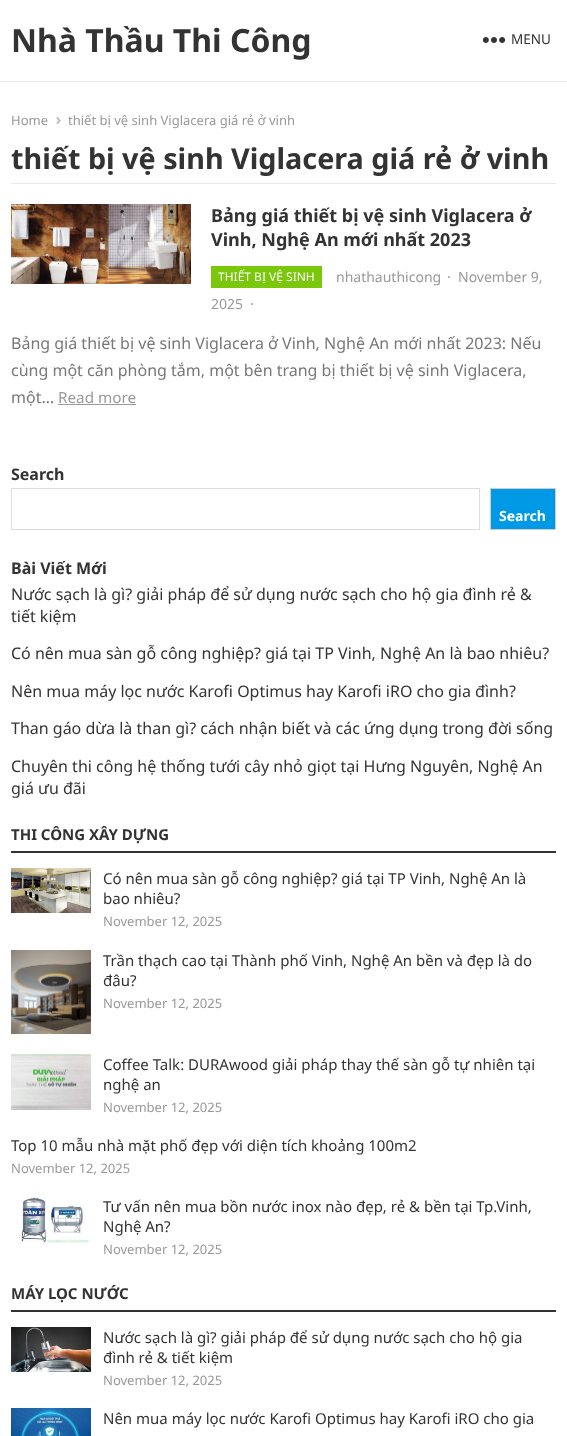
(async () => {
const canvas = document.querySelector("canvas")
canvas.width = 567
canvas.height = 1436
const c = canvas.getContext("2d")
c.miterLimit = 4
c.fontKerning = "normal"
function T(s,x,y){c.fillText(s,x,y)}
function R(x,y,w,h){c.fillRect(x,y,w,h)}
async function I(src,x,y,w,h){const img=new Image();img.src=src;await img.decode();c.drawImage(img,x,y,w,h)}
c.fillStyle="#fff"
R(0,0,567,1436)
c.fillStyle="#e9e9e9"
R(0,81,567,1)
c.font="bold 32px Noto Sans"
c.fillStyle="#333"
T("Nhà Thầu Thi Công",11,52)
await I("1.png",482,37,24,6)
c.font="13.5px Noto Sans"
T("MENU",511,44)
c.fillStyle="#e9e9e9"
R(11,183,545,1)
c.font="13px Noto Sans"
c.fillStyle="#999"
T("Home",11,125)
await I("2.png",56,117,5,7)
T("thiết bị vệ sinh Viglacera giá rẻ ở vinh",68,125)
c.font="bold 28.75px Noto Sans"
c.fillStyle="#333"
T("thiết bị vệ sinh Viglacera giá rẻ ở vinh",11,169)
await I("3.png",11,204,180,80)
c.font="bold 18px Noto Sans"
T("Bảng giá thiết bị vệ sinh Viglacera ở",211,222)
T("Vinh, Nghệ An mới nhất 2023",211,246)
c.fillStyle="#7ac70c"
R(211,266,111,22)
c.font="12px Noto Sans"
c.fillStyle="#fff"
T("THIẾT BỊ VỆ SINH",218,281)
c.font="14px Noto Sans"
c.fillStyle="#999"
T("nhathauthicong",336,282)
T("·",447,282)
T("November 9,",458,282)
T("2025",211,309)
T("·",250,309)
c.font="16px Noto Sans"
c.fillStyle="#777"
T("Bảng giá thiết bị vệ sinh Viglacera ở Vinh, Nghệ An mới nhất 2023: Nếu",11,349)
T("cùng một căn phòng tắm, một bên trang bị thiết bị vệ sinh Viglacera,",11,376)
T("một…",11,403)
c.font="15.25px Noto Sans"
c.fillStyle="#999"
T("Read more",58,403)
R(58,404,78,1)
c.font="bold 16px Noto Sans"
c.fillStyle="#333"
T("Search",11,480)
c.strokeStyle="#ddd"
c.strokeRect(11.5,488.5,468,41)
c.fillStyle="#0099e5"
c.beginPath()
c.rect(490.5,488.5,65,41)
c.fill()
c.strokeStyle="#ccc"
c.stroke()
c.font="bold 14px Noto Sans"
c.fillStyle="#fff"
T("Search",499,521)
c.font="bold 16px Noto Sans"
c.fillStyle="#333"
T("Bài Viết Mới",11,574)
c.font="16px Noto Sans"
T("Nước sạch là gì? giải pháp để sử dụng nước sạch cho hộ gia đình rẻ &",11,600)
T("tiết kiệm",11,622)
T("Có nên mua sàn gỗ công nghiệp? giá tại TP Vinh, Nghệ An là bao nhiêu?",11,659)
T("Nên mua máy lọc nước Karofi Optimus hay Karofi iRO cho gia đình?",11,697)
T("Than gáo dừa là than gì? cách nhận biết và các ứng dụng trong đời sống",11,734)
T("Chuyên thi công hệ thống tưới cây nhỏ giọt tại Hưng Nguyên, Nghệ An",11,772)
T("giá ưu đãi",11,794)
R(11,851,545,2)
c.font="bold 15px Noto Sans"
T("THI CÔNG XÂY DỰNG",11,840)
await I("4.png",11,868,80,45)
c.font="15px Noto Sans"
T("Có nên mua sàn gỗ công nghiệp? giá tại TP Vinh, Nghệ An là",103,884)
T("bao nhiêu?",103,904)
c.font="13px Noto Sans"
c.fillStyle="#999"
T("November 12, 2025",103,926)
await I("5.png",11,950,80,84)
c.font="15px Noto Sans"
c.fillStyle="#333"
T("Trần thạch cao tại Thành phố Vinh, Nghệ An bền và đẹp là do",103,966)
T("đâu?",103,986)
c.font="13px Noto Sans"
c.fillStyle="#999"
T("November 12, 2025",103,1008)
await I("6.png",11,1054,80,56)
c.font="15px Noto Sans"
c.fillStyle="#333"
T("Coffee Talk: DURAwood giải pháp thay thế sàn gỗ tự nhiên tại",103,1070)
T("nghệ an",103,1090)
c.font="13px Noto Sans"
c.fillStyle="#999"
T("November 12, 2025",103,1112)
c.font="15px Noto Sans"
c.fillStyle="#333"
T("Top 10 mẫu nhà mặt phố đẹp với diện tích khoảng 100m2",11,1151)
c.font="13px Noto Sans"
c.fillStyle="#999"
T("November 12, 2025",11,1173)
await I("7.png",21,1197,69,46)
c.font="15px Noto Sans"
c.fillStyle="#333"
T("Tư vấn nên mua bồn nước inox nào đẹp, rẻ & bền tại Tp.Vinh,",103,1212)
T("Nghệ An?",103,1232)
c.font="13px Noto Sans"
c.fillStyle="#999"
T("November 12, 2025",103,1254)
c.fillStyle="#333"
R(11,1310,545,2)
c.font="bold 15px Noto Sans"
T("MÁY LỌC NƯỚC",11,1299)
await I("8.png",11,1327,80,45)
c.font="15px Noto Sans"
T("Nước sạch là gì? giải pháp để sử dụng nước sạch cho hộ gia",103,1343)
T("đình rẻ & tiết kiệm",103,1363)
c.font="13px Noto Sans"
c.fillStyle="#999"
T("November 12, 2025",103,1385)
await I("9.png",11,1408,80,28)
c.font="15px Noto Sans"
c.fillStyle="#333"
T("Nên mua máy lọc nước Karofi Optimus hay Karofi iRO cho gia",103,1424)
})()
